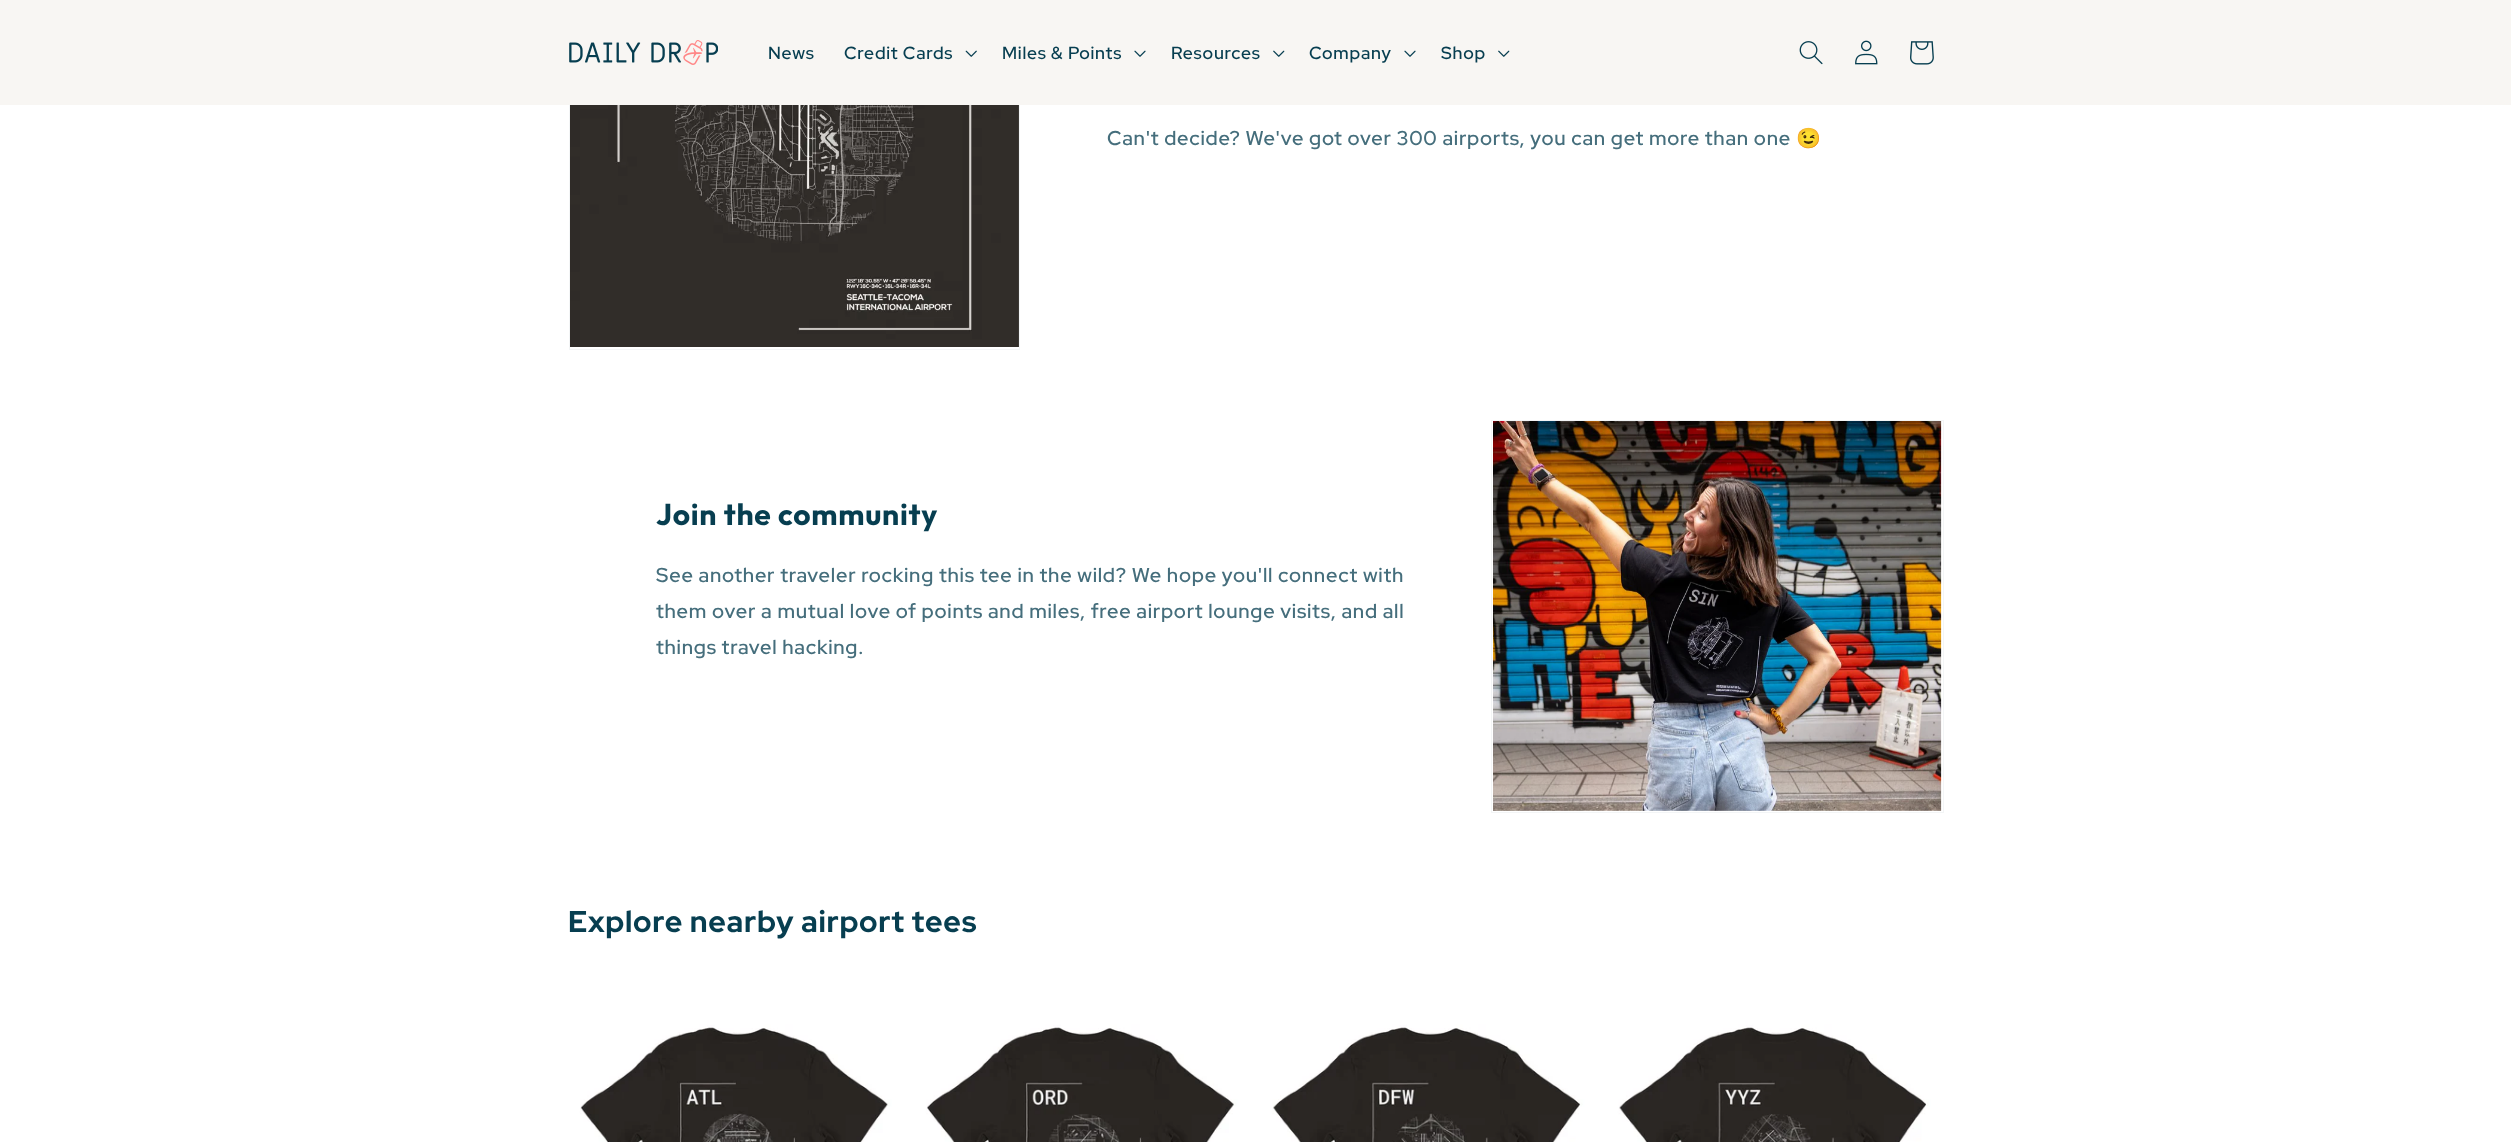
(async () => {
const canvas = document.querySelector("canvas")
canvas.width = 2511
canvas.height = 1142
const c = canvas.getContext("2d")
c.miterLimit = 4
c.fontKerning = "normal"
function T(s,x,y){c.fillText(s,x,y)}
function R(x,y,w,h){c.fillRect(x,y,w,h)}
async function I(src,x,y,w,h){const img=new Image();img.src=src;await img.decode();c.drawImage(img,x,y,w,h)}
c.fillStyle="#fff"
R(0,0,2511,1142)
c.strokeStyle="#f3f5f6"
c.strokeRect(569.5,-.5,450,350)
c.fillStyle="#f8f6f3"
R(0,0,2511,105)
await I("1.png",569,40,149,25)
c.letterSpacing="0.75px"
c.font="500 17.5px Red Hat Display"
c.fillStyle="#073e50"
T("News",768,59)
T("Credit Cards",844,59)
await I("2.png",965,50,12,7)
T("Miles & Points",1002,59)
await I("3.png",1134,50,12,7)
T("Resources",1171,59)
await I("4.png",1273,50,12,7)
T("Company",1309,59)
await I("3.png",1404,50,12,7)
T("Shop",1441,59)
await I("4.png",1498,50,12,7)
await I("5.png",1799,41,24,24)
await I("6.png",1855,40,23,25)
await I("7.png",1910,41,24,24)
await I("8.png",570,105,449,242)
c.font="500 20px Red Hat Display"
c.fillStyle="#456e7c"
T("Can't decide? We've got over 300 airports, you can get more than one",1107,145)
c.font="20px Noto Color Emoji"
T("😉",1796,145)
c.font="bold 30px Outfit"
c.fillStyle="#073e50"
T("Join the community",656,525)
c.font="500 20px Red Hat Display"
c.fillStyle="#456e7c"
T("See another traveler rocking this tee in the wild? We hope you'll connect with",656,582)
T("them over a mutual love of points and miles, free airport lounge visits, and all",656,618)
T("things travel hacking.",656,654)
c.strokeRect(1491.5,420.5,452,392)
await I("9.png",1493,421,449,390)
c.font="bold 30px Red Hat Display"
c.fillStyle="#073e50"
T("Explore nearby airport tees",568,932)
await I("10.png",569,1010,336,132)
await I("11.png",915,1010,336,132)
await I("12.png",1261,1010,337,132)
await I("13.png",1608,1010,336,132)
})()
